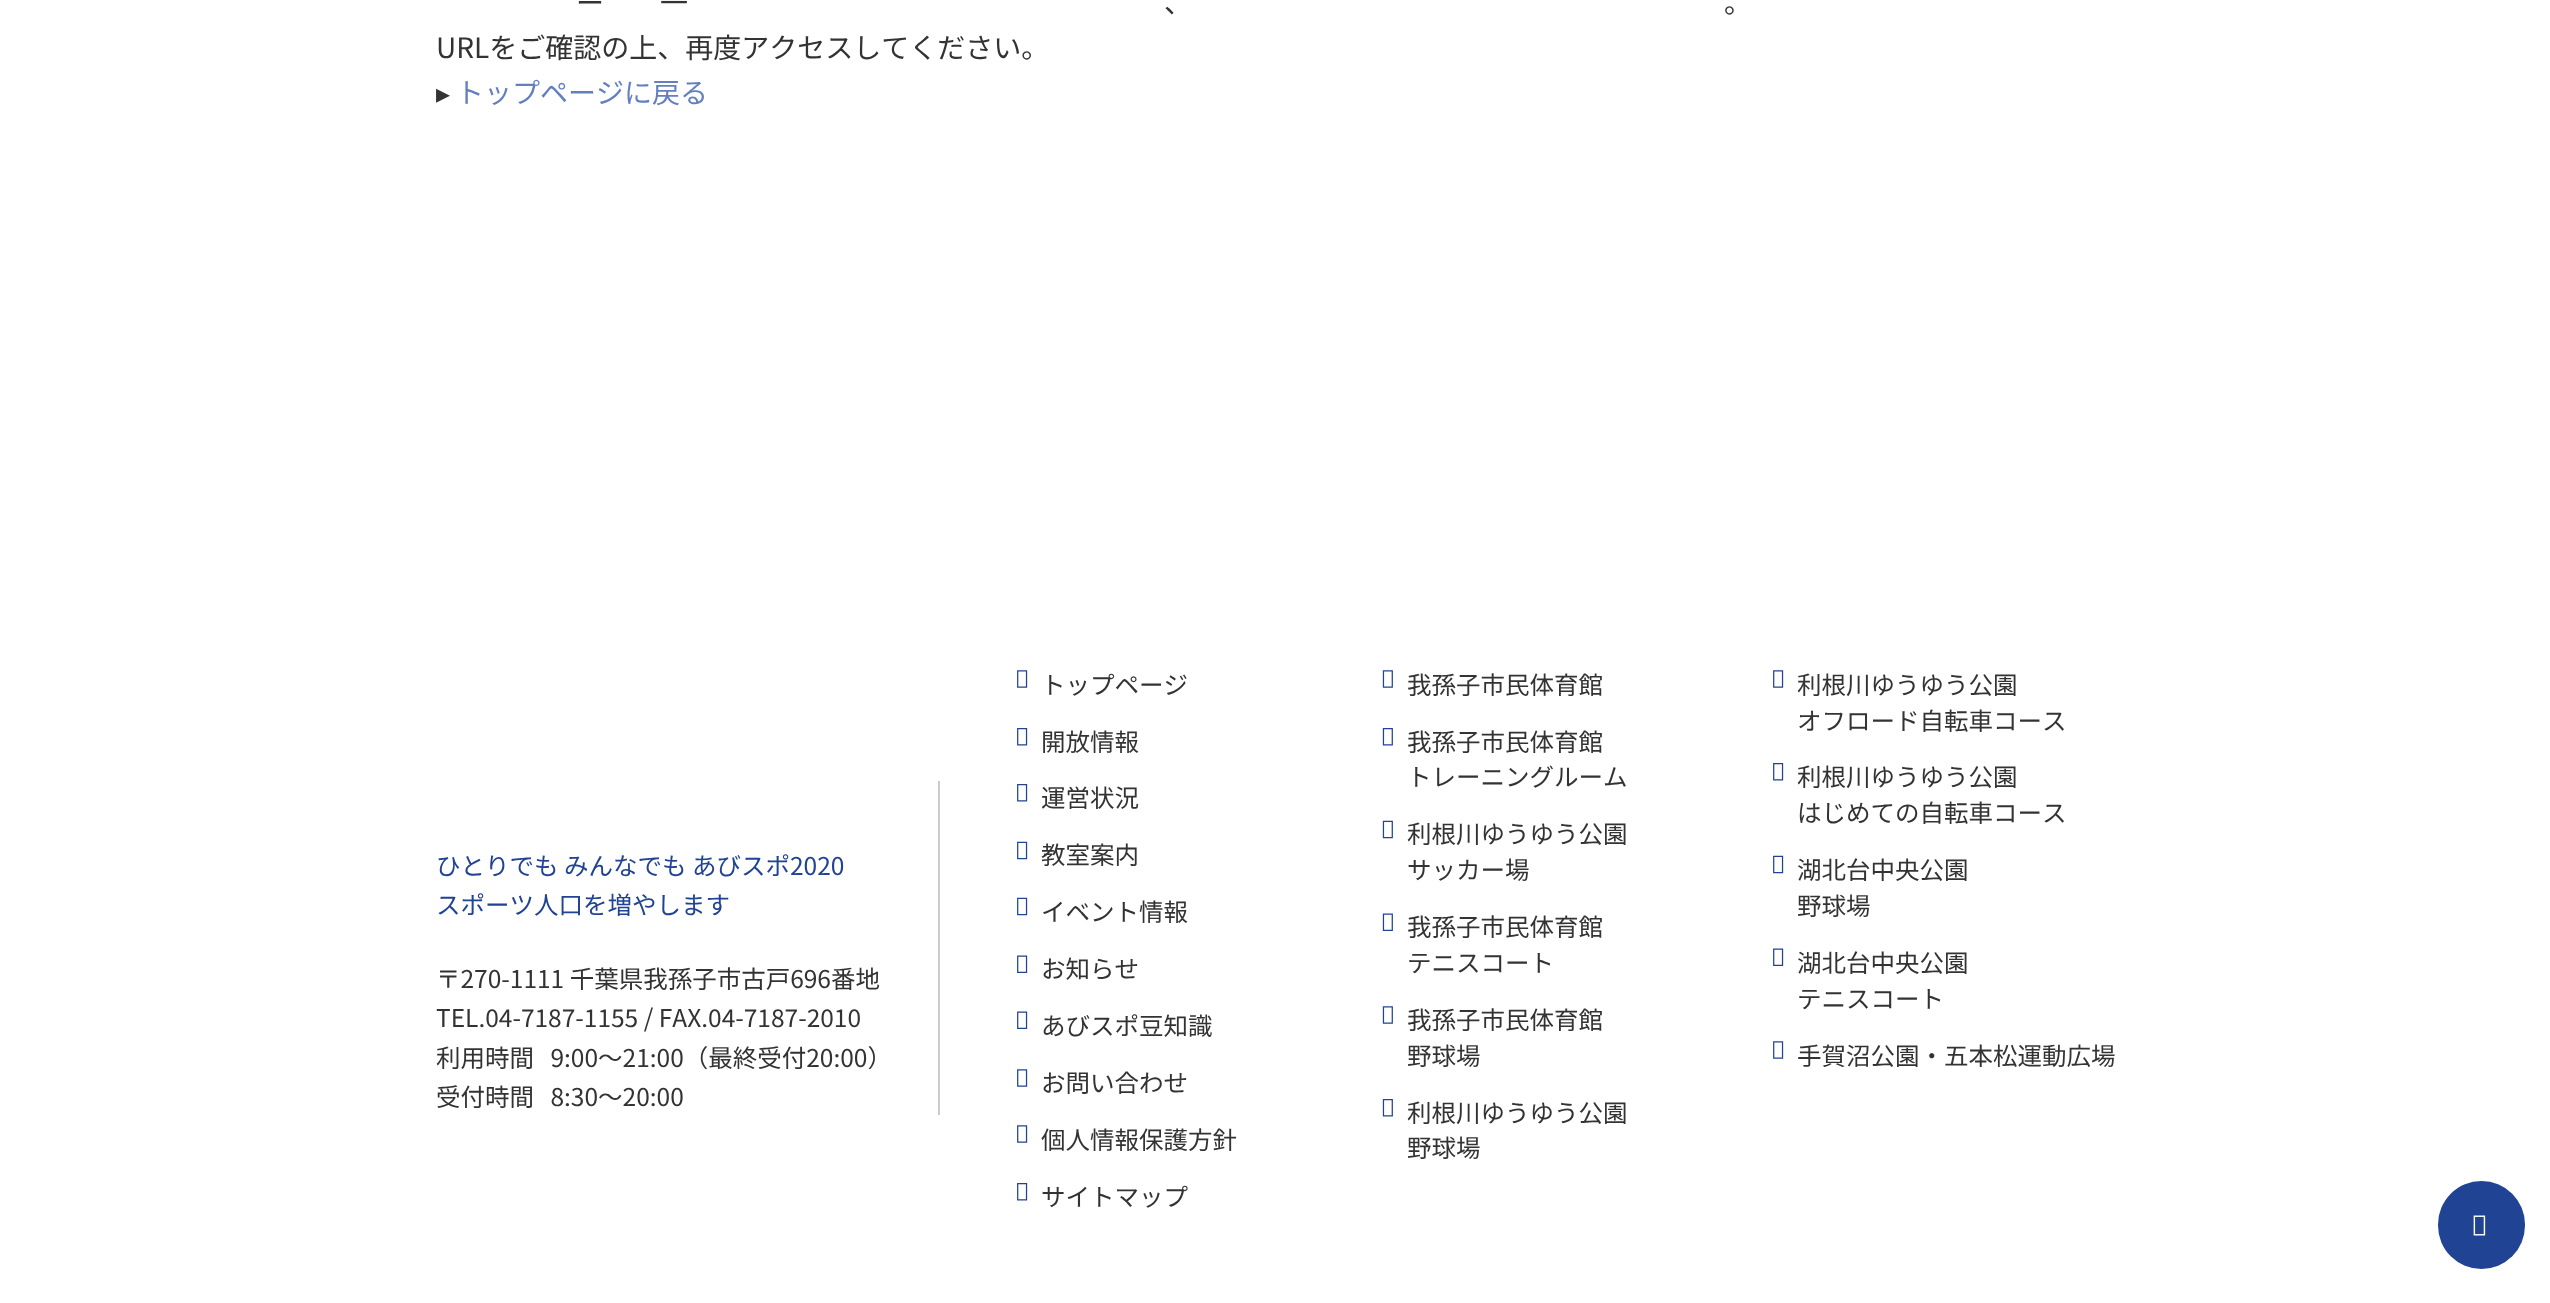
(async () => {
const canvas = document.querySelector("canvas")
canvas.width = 2550
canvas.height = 1303
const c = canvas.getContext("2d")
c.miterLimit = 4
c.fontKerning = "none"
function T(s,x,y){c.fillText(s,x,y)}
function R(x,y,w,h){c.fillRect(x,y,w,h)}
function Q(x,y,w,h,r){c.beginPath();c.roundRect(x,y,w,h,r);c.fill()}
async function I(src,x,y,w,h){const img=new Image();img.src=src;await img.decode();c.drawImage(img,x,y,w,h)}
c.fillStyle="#fff"
R(0,0,2550,1303)
c.font="28px Noto Sans JP"
c.fillStyle="#333"
T("ー",576,13)
T("一",660,13)
T("、",1164,13)
T("。",1724,13)
T("URLをご確認の上、再度アクセスしてください。",436,58)
c.font="28px DejaVu Sans"
T("▸",436,103)
c.font="28px Noto Sans JP"
c.fillStyle="#647fc1"
T("トップページに戻る",456,103)
c.fillStyle="#ccc"
R(938,781,2,334)
c.font="24.5px Noto Sans JP"
c.fillStyle="#214393"
T("ひとりでも みんなでも あびスポ2020",436,875)
T("スポーツ人口を増やします",436,914)
c.fillStyle="#333"
T("〒270-1111 千葉県我孫子市古戸696番地",436,988)
T("TEL.04-7187-1155 / FAX.04-7187-2010",436,1027)
T("利用時間   9:00～21:00（最終受付20:00）",436,1067)
T("受付時間   8:30～20:00",436,1106)
await I("1.png",1017,670,11,18)
T("トップページ",1041,694)
await I("2.png",1017,728,11,18)
T("開放情報",1041,751)
await I("2.png",1017,784,11,18)
T("運営状況",1041,807)
await I("3.png",1017,841,11,19)
T("教室案内",1041,864)
await I("3.png",1017,897,11,19)
T("イベント情報",1041,921)
await I("4.png",1017,955,11,18)
T("お知らせ",1041,978)
await I("4.png",1017,1011,11,18)
T("あびスポ豆知識",1041,1035)
await I("1.png",1017,1069,11,18)
T("お問い合わせ",1041,1092)
await I("1.png",1017,1125,11,18)
T("個人情報保護方針",1041,1149)
await I("2.png",1017,1183,11,18)
T("サイトマップ",1041,1206)
await I("5.png",1382,670,11,18)
T("我孫子市民体育館",1407,694)
await I("6.png",1382,728,11,18)
T("我孫子市民体育館",1407,751)
T("トレーニングルーム",1407,786)
await I("7.png",1382,820,11,19)
T("利根川ゆうゆう公園",1407,843)
T("サッカー場",1407,879)
await I("8.png",1382,913,11,18)
T("我孫子市民体育館",1407,936)
T("テニスコート",1407,972)
await I("5.png",1382,1006,11,18)
T("我孫子市民体育館",1407,1029)
T("野球場",1407,1065)
await I("6.png",1382,1099,11,18)
T("利根川ゆうゆう公園",1407,1122)
T("野球場",1407,1157)
await I("1.png",1773,670,11,18)
T("利根川ゆうゆう公園",1797,694)
T("オフロード自転車コース",1797,730)
await I("2.png",1773,763,11,18)
T("利根川ゆうゆう公園",1797,786)
T("はじめての自転車コース",1797,822)
await I("3.png",1773,855,11,19)
T("湖北台中央公園",1797,879)
T("野球場",1797,915)
await I("4.png",1773,948,11,18)
T("湖北台中央公園",1797,972)
T("テニスコート",1797,1008)
await I("1.png",1773,1041,11,18)
T("手賀沼公園・五本松運動広場",1797,1065)
c.fillStyle="#214393"
Q(2438,1181,87,88,43.5)
await I("9.png",2473,1215,13,21)
})()
